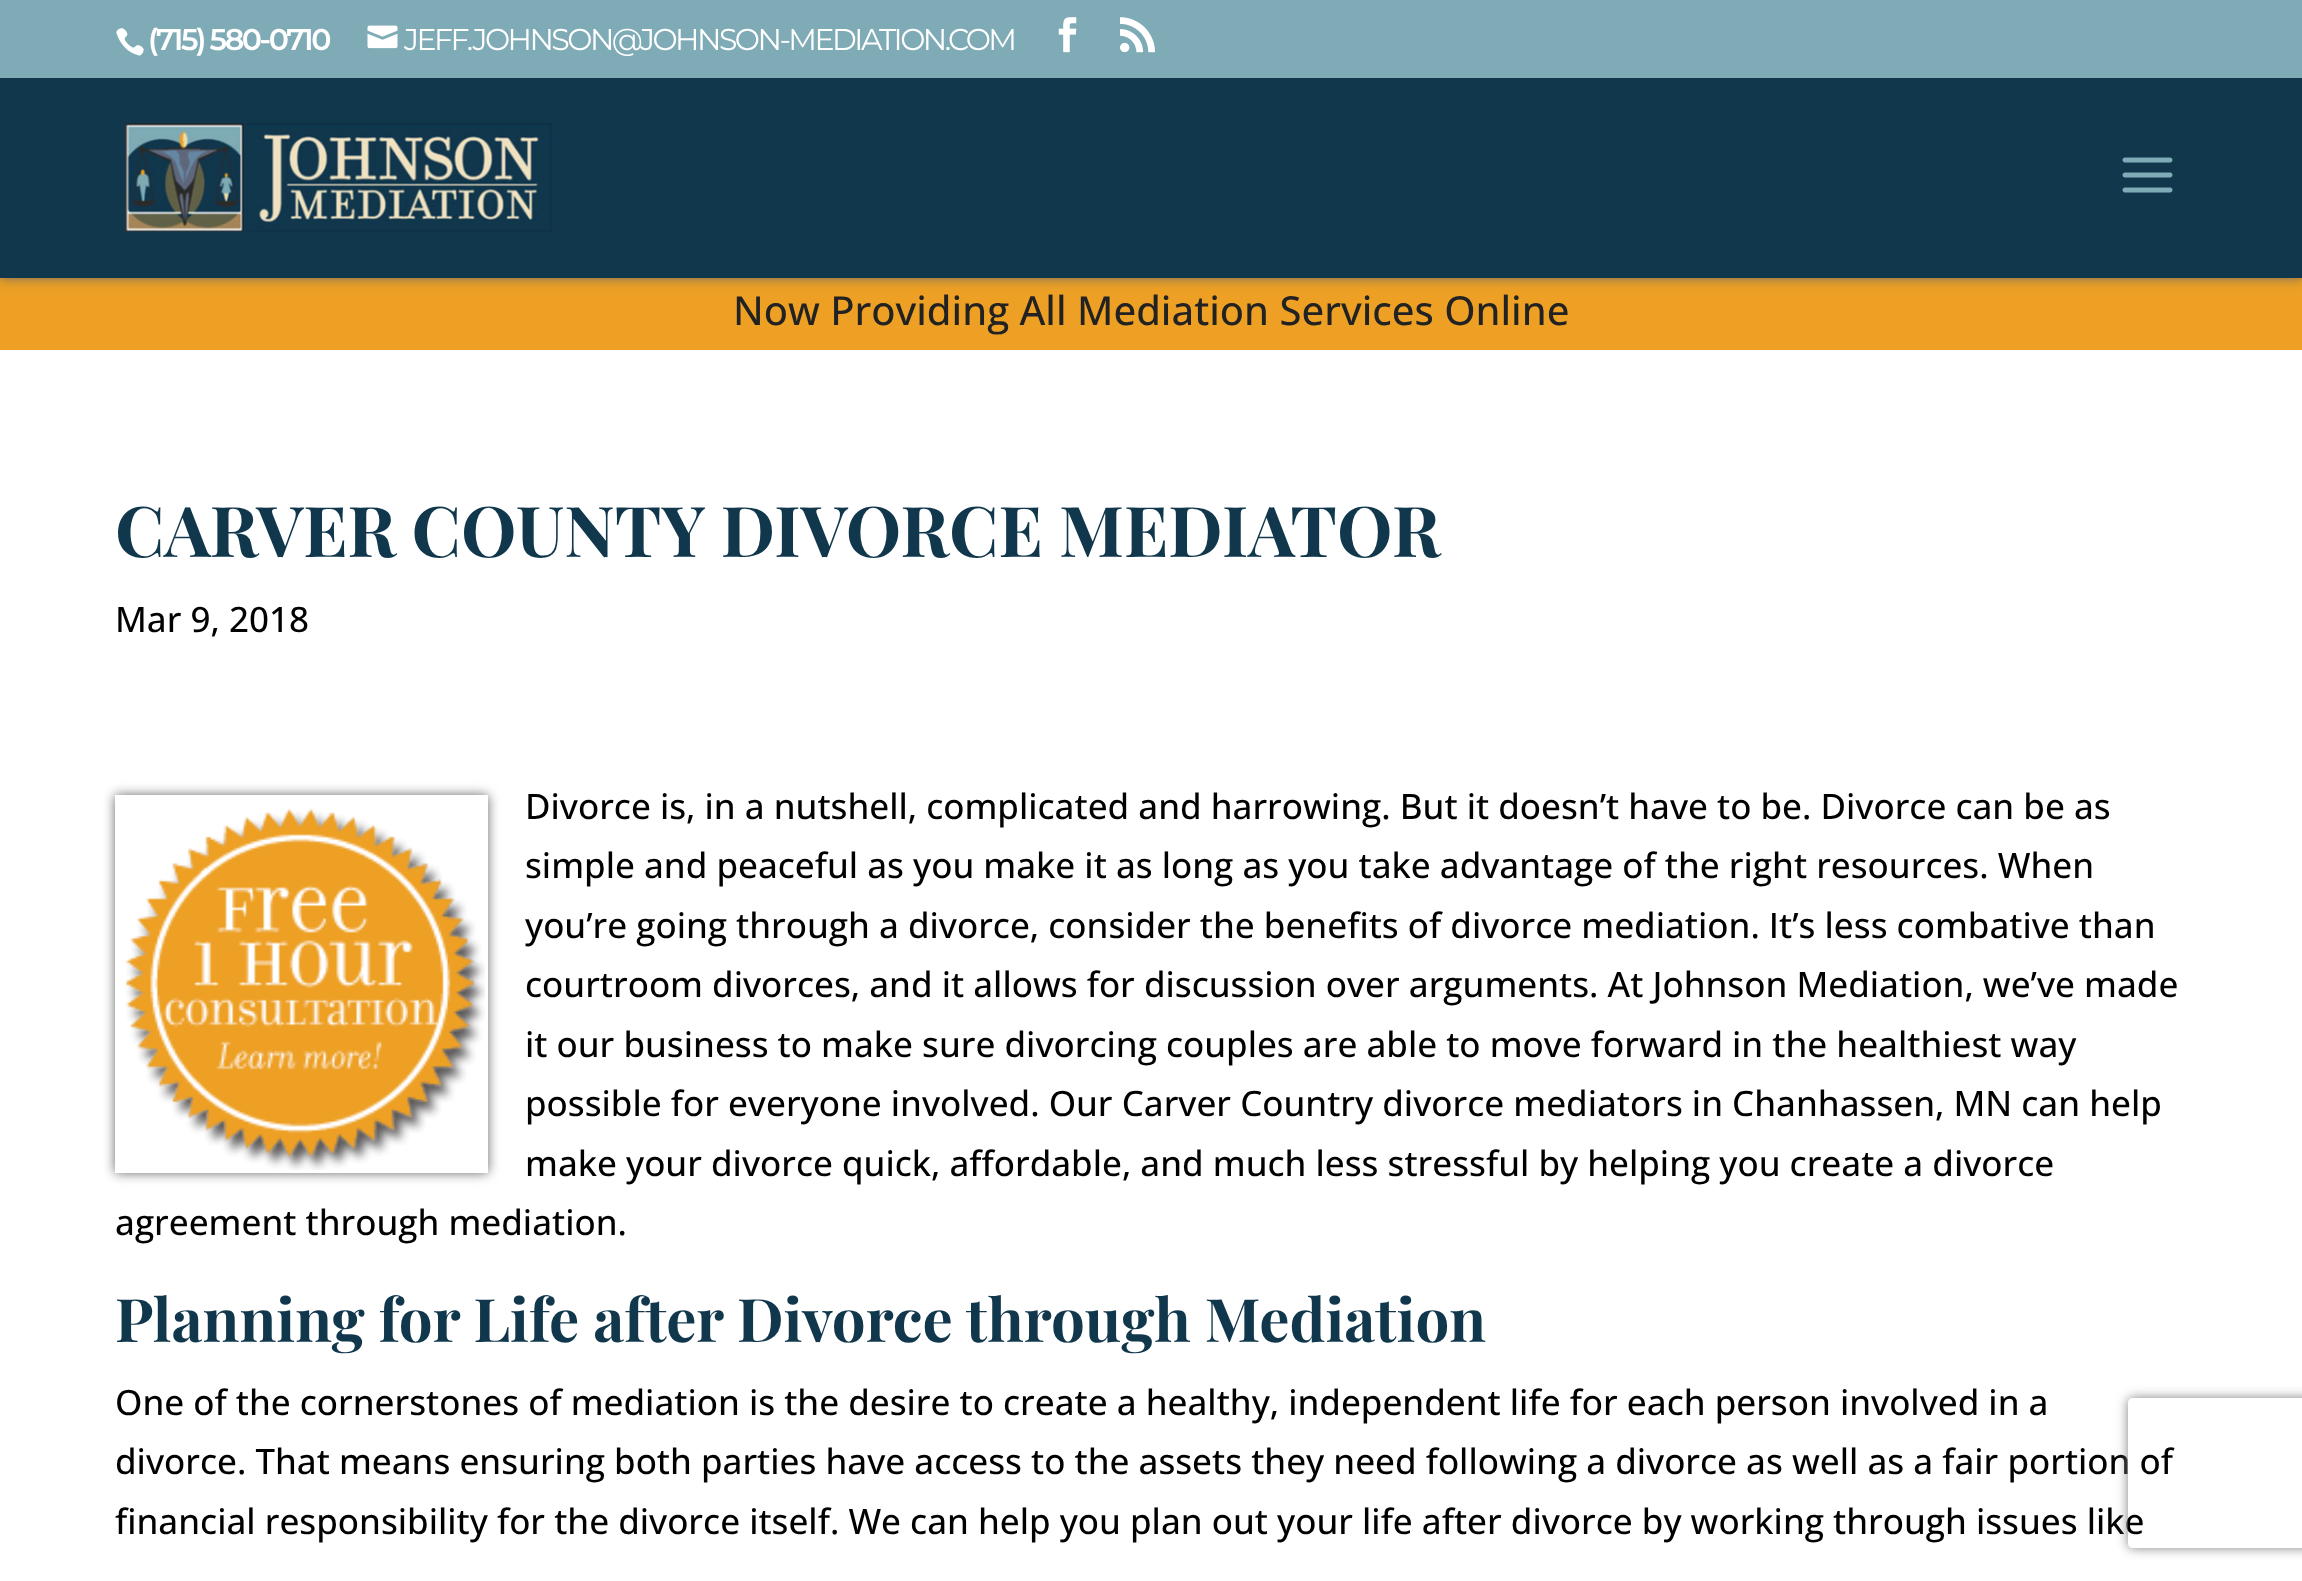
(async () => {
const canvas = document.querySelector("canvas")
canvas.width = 2302
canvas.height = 1581
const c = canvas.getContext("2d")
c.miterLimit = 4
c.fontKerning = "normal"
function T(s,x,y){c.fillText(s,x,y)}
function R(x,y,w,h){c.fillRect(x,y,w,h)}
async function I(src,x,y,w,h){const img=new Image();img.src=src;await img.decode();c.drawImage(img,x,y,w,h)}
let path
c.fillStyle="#fff"
R(0,0,2302,1581)
c.fillStyle="#eda023"
R(0,278,2302,72)
c.fillStyle="#666"
c.filter="blur(6px)"
c.beginPath()
c.rect(0,78,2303,200)
c.fill()
c.filter="none"
c.fillStyle="#7eabb5"
R(0,0,2302,78)
await I("1.png",116,28,28,28)
c.letterSpacing="-2.5px"
c.font="600 30px Montserrat"
c.fillStyle="#fff"
T("(715) 580-0710",148,50)
await I("2.png",367,25,31,24)
c.font="30px Montserrat"
T("JEFF.JOHNSON@JOHNSON-MEDIATION.COM",404,50)
await I("3.png",1058,17,19,36)
await I("4.png",1120,17,35,36)
c.fillStyle="#11374d"
R(0,78,2302,200)
await I("5.png",124,123,428,109)
await I("6.png",2122,157,51,36)
c.letterSpacing="0px"
c.font="500 40px Open Sans"
c.fillStyle="#222"
T("Now Providing All Mediation Services Online",733,325)
c.font="bold 70px Playfair Display"
c.fillStyle="#11374d"
T("CARVER COUNTY DIVORCE MEDIATOR",115,557)
c.font="500 35px Open Sans"
c.fillStyle="#000"
T("Mar 9, 2018",115,632)
c.save()
path = new Path2D("M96 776h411v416h-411zm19 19h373v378h-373z")
c.clip(path,"evenodd")
c.fillStyle="#666"
c.filter="blur(6px)"
c.beginPath()
c.rect(115,795,373,378)
c.fill()
c.filter="none"
c.restore()
c.strokeStyle="#fff"
c.lineWidth=3
c.strokeRect(116.5,796.5,370,375)
await I("7.png",125,808,360,362)
T("Divorce is, in a nutshell, complicated and harrowing. But it doesn’t have to be. Divorce can be as",525,819)
T("simple and peaceful as you make it as long as you take advantage of the right resources. When",525,878)
T("you’re going through a divorce, consider the benefits of divorce mediation. It’s less combative than",525,938)
T("courtroom divorces, and it allows for discussion over arguments. At Johnson Mediation, we’ve made",525,997)
T("it our business to make sure divorcing couples are able to move forward in the healthiest way",525,1057)
T("possible for everyone involved. Our Carver Country divorce mediators in Chanhassen, MN can help",525,1116)
T("make your divorce quick, affordable, and much less stressful by helping you create a divorce",525,1176)
T("agreement through mediation.",115,1235)
c.font="bold 60px Playfair Display"
c.fillStyle="#11374d"
T("Planning for Life after Divorce through Mediation",115,1342)
c.font="500 35px Open Sans"
c.fillStyle="#000"
T("One of the cornerstones of mediation is the desire to create a healthy, independent life for each person involved in a",115,1415)
T("divorce. That means ensuring both parties have access to the assets they need following a divorce as well as a fair portion of",115,1474)
T("financial responsibility for the divorce itself. We can help you plan out your life after divorce by working through issues like",115,1534)
c.save()
path = new Path2D("M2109 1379h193v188h-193zm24 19h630c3 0 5 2 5 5v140c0 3-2 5-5 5h-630c-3 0-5-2-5-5v-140c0-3 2-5 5-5z")
c.clip(path,"evenodd")
c.fillStyle="#808080"
c.filter="blur(6px)"
c.beginPath()
c.roundRect(2128,1398,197,150,5)
c.fill()
c.filter="none"
c.restore()
})()
